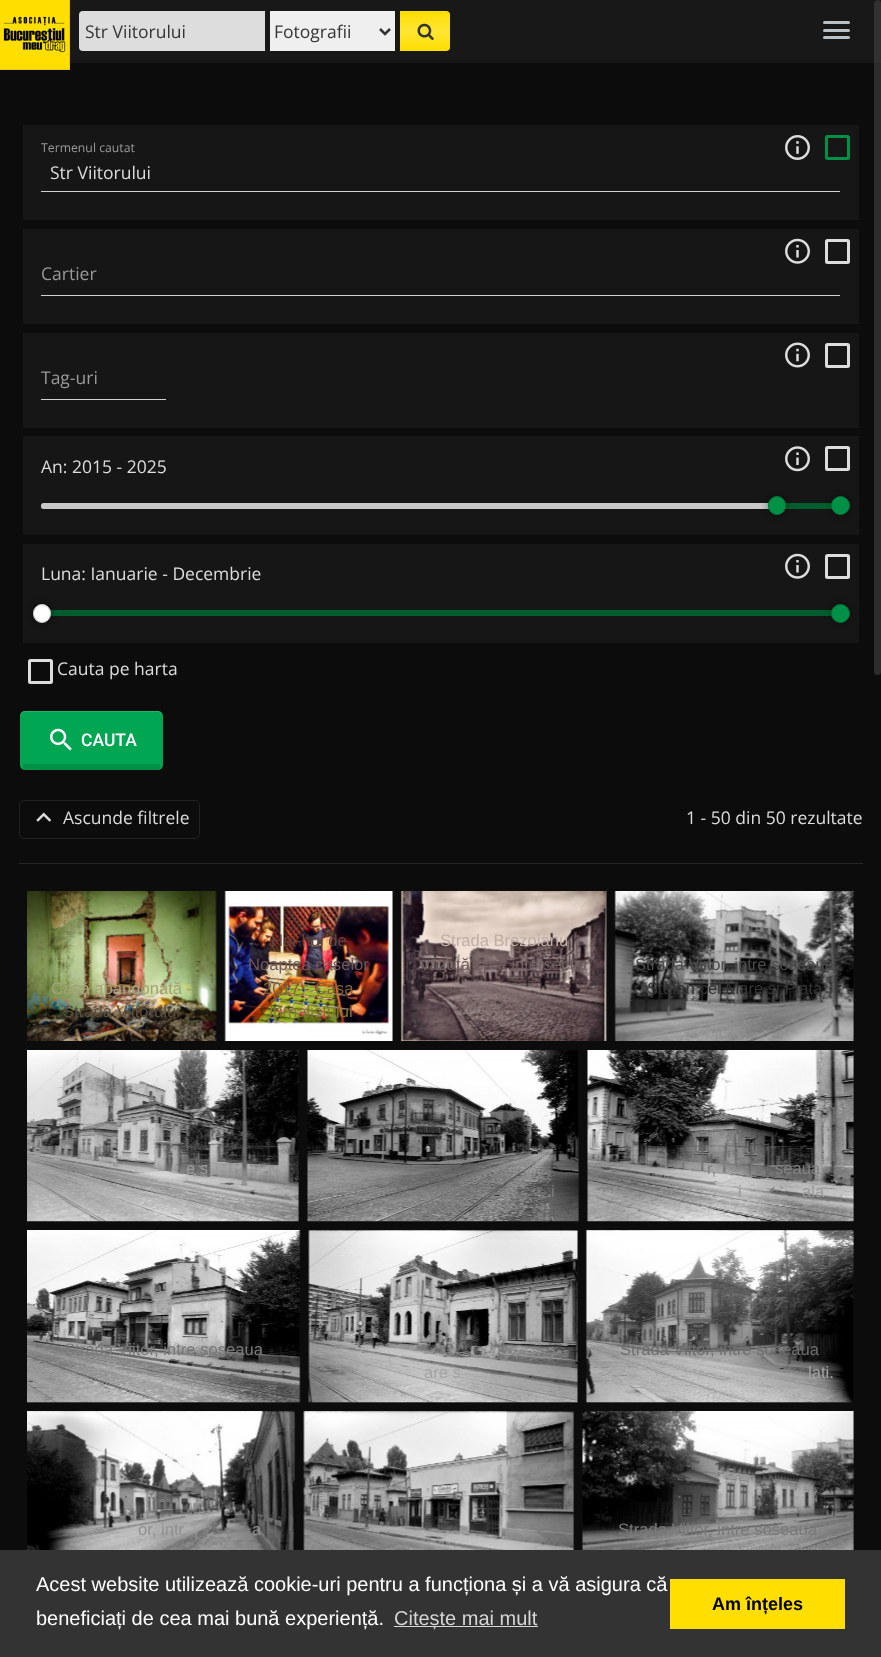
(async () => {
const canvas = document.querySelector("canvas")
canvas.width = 881
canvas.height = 1657
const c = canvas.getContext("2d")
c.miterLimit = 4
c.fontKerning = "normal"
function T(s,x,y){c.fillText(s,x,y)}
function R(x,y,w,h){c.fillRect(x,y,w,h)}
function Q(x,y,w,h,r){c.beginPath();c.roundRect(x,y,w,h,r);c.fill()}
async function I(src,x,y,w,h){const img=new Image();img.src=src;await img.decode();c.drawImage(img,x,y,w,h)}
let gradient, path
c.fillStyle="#0c0c0c"
R(0,0,881,1657)
c.fillStyle="#181818"
R(70,0,811,63)
c.fillStyle="#ffde00"
R(0,0,69,69)
await I("1.png",3,16,63,37)
c.fillStyle="#e6c800"
R(69,0,1,70)
R(0,69,70,1)
c.fillStyle="#ddd"
c.beginPath()
c.roundRect(79,11,186,40,[4,0,0,4])
c.fill()
c.font="17.5px Open Sans"
c.fillStyle="#343434"
T("Str Viitorului",85,38)
c.fillStyle="#efefef"
R(270,11,125,40)
path = new Path2D("M380 29l5 5l5-5")
c.strokeStyle="#333"
c.lineWidth=2.5
c.stroke(path)
c.fillStyle="#343434"
T("Fotografii",274,38)
gradient = c.createLinearGradient(425,11,425,51)
gradient.addColorStop(0,"#ffde00")
gradient.addColorStop(.5,"#ffe533")
gradient.addColorStop(1,"#ffde00")
c.fillStyle = gradient
c.beginPath()
c.roundRect(400,11,50,40,[0,4,4,0])
c.fill()
await I("2.png",417,23,17,17)
c.fillStyle="#b9c1c7"
Q(823,21,27,3,1.5)
Q(823,29,27,3,1.5)
Q(823,36,27,3,1.5)
c.fillStyle="#4242429c"
Q(874,0,7,675,3.5)
c.fillStyle="#161616"
R(23,125,836,95)
c.font="12.25px Open Sans"
c.fillStyle="#999"
T("Termenul cautat",41,152)
c.fillStyle="#d2d2d2"
R(41,191,799,1)
c.font="17.5px Open Sans"
c.fillStyle="#ddd"
T("Str Viitorului",50,179)
await I("3.png",785,135,25,25)
c.beginPath()
c.roundRect(826.5,136.5,22,22,1)
c.strokeStyle="#009147"
c.lineWidth=3
c.stroke()
c.fillStyle="#161616"
R(23,229,836,95)
await I("4.png",785,238,25,26)
c.beginPath()
c.roundRect(826.5,240.5,22,22,1)
c.strokeStyle="#ddd"
c.stroke()
c.fillStyle="#999"
T("Cartier",41,280)
c.fillStyle="#d2d2d2"
R(41,295,799,1)
c.fillStyle="#161616"
R(23,333,836,95)
await I("5.png",785,342,25,26)
c.beginPath()
c.roundRect(826.5,344.5,22,22,1)
c.stroke()
c.fillStyle="#999"
T("Tag-uri",41,384)
c.fillStyle="#d2d2d2"
R(41,399,125,1)
c.fillStyle="#161616"
R(23,436,836,99)
c.fillStyle="#ddd"
T("An: 2015 - 2025",41,473)
c.fillStyle="#c8c8c8"
Q(41,503,799,6,2.5)
c.fillStyle="#005e2e"
R(785,503,55,6)
c.fillStyle="#0000004d"
c.filter="blur(3px)"
c.beginPath()
c.roundRect(766,495,22,21,10.5)
c.fill()
c.filter="none"
c.fillStyle="#009147"
c.beginPath()
c.roundRect(768.5,496.5,17,18,8.5)
c.fill()
c.strokeStyle="#00783b"
c.lineWidth=1
c.stroke()
c.fillStyle="#0000004d"
c.filter="blur(3px)"
c.beginPath()
c.roundRect(830,495,21,21,10.5)
c.fill()
c.filter="none"
c.fillStyle="#009147"
c.beginPath()
c.arc(840.5,505.5,9,0,7)
c.fill()
c.stroke()
await I("6.png",785,446,25,26)
c.beginPath()
c.roundRect(826.5,447.5,22,22,1)
c.strokeStyle="#ddd"
c.lineWidth=3
c.stroke()
c.fillStyle="#161616"
R(23,544,836,99)
c.fillStyle="#ddd"
T("Luna: Ianuarie - Decembrie",41,580)
c.fillStyle="#005e2e"
R(50,610,790,6)
c.fillStyle="#0000004d"
c.filter="blur(3px)"
c.beginPath()
c.roundRect(31,603,22,21,10.5)
c.fill()
c.filter="none"
c.fillStyle="#fff"
c.beginPath()
c.roundRect(33.5,604.5,17,18,8.5)
c.fill()
c.strokeStyle="#c8c8c8"
c.lineWidth=1
c.stroke()
c.fillStyle="#0000004d"
c.filter="blur(3px)"
c.beginPath()
c.roundRect(830,603,21,21,10.5)
c.fill()
c.filter="none"
c.fillStyle="#009147"
c.beginPath()
c.arc(840.5,613.5,9,0,7)
c.fill()
c.strokeStyle="#00783b"
c.stroke()
await I("4.png",785,553,25,26)
c.beginPath()
c.roundRect(826.5,555.5,22,22,1)
c.strokeStyle="#ddd"
c.lineWidth=3
c.stroke()
c.beginPath()
c.roundRect(29.5,660.5,22,22,1)
c.stroke()
c.fillStyle="#ddd"
T("Cauta pe harta",57,675)
c.fillStyle="#00a651"
Q(20,711,143,59,5)
c.fillStyle="#ffffff26"
path = new Path2D("M25 712h133c2 0 4 3 4 6v46v-48c0-3-2-5-4-5h-133c-3 0-5 2-5 5v2c0-3 2-6 5-6z")
c.fill(path)
c.fillStyle="#009046"
R(23,764,137,6)
await I("7.png",50,728,22,23)
c.font="500 17.5px Roboto"
c.fillStyle="#fff"
T("CAUTA",81,746)
c.beginPath()
c.roundRect(19.5,800.5,180,38,4.5)
c.strokeStyle="#222"
c.lineWidth=1
c.stroke()
await I("8.png",36,812,16,10)
c.font="17.5px Open Sans"
c.fillStyle="#ddd"
T("Ascunde filtrele",63,824)
T("1 - 50 din 50 rezultate",686,824)
c.fillStyle="#262626"
R(19,863,844,1)
c.fillStyle="#181818"
R(225,891,168,150)
await I("9.png",224,891,169,150)
c.font="16.6px Liberation Sans"
c.fillStyle="#64403d"
T("Hai-hui de",271,946)
c.fillStyle="#735858"
T("Noaptea caselor",248,970)
c.fillStyle="#826432"
T("2017 - Casa",263,994)
c.fillStyle="#877833"
T("Jurnalistului",265,1017)
c.fillStyle="#181818"
R(401,891,205,150)
await I("10.png",400,891,207,150)
c.fillStyle="#c0aea6"
T("Strada Brezoianu",440,946)
c.fillStyle="#6e5e5f"
T("văzută spre intersecția",421,970)
c.fillStyle="#181818"
R(615,891,239,150)
await I("11.png",614,891,240,150)
c.fillStyle="#4b4b4b"
T("Strada Viitor, intre soseaua",635,970)
c.fillStyle="#343434"
T("Stefan cel Mare si Piata",647,994)
await I("12.png",27,891,190,150)
c.fillStyle="#a4a374"
T("Casă abandonată -",51,994)
c.fillStyle="#564e3d"
T("Strada Viitorului",63,1017)
c.fillStyle="#181818"
R(298,1050,1,171)
await I("13.png",27,1050,273,172)
c.fillStyle="#999"
T("e s",186,1174)
c.fillStyle="#181818"
R(578,1050,1,171)
await I("14.png",307,1050,272,172)
c.fillStyle="#797979"
T("i",551,1197)
c.fillStyle="#181818"
R(853,1050,1,171)
await I("15.png",587,1050,267,172)
c.fillStyle="#828282"
T("r,",707,1174)
T("seaua",775,1174)
c.fillStyle="#999"
T("i",738,1197)
T("ala",802,1197)
c.fillStyle="#181818"
R(28,1230,272,173)
await I("16.png",27,1230,274,173)
c.fillStyle="#797979"
T("Strada Viitor, intre soseaua",64,1355)
c.fillStyle="#181818"
R(309,1230,269,173)
await I("17.png",308,1230,270,173)
c.fillStyle="#a3a3a3"
T("are s",424,1378)
c.fillStyle="#181818"
R(586,1230,268,173)
await I("18.png",585,1230,269,173)
c.fillStyle="#6e6e6e"
T("Strada Viitor, intre soseaua",620,1355)
c.fillStyle="#a3a3a3"
T("lati.",808,1378)
c.fillStyle="#181818"
R(294,1411,1,139)
await I("19.png",27,1411,269,139)
c.fillStyle="#909090"
T("or, intr",138,1535)
T("a",252,1535)
c.fillStyle="#181818"
R(304,1411,270,139)
await I("20.png",303,1411,272,139)
R(853,1411,1,139)
await I("21.png",582,1411,272,139)
c.fillStyle="#797979"
T("Strada Viitor, intre soseaua",618,1535)
c.fillStyle="#333"
R(0,1550,881,107)
c.font="20px Liberation Sans"
c.fillStyle="#fff"
T("Acest website utilizează cookie-uri pentru a funcționa și a vă asigura că",36,1591)
T("beneficiați de cea mai bună experiență.",36,1625)
c.fillStyle="#d6d6d6"
R(394,1626,144,1)
T("Citește mai mult",394,1625)
c.fillStyle="#ffde00"
R(670,1579,175,50)
c.font="bold 18px Liberation Sans"
c.fillStyle="#000"
T("Am înțeles",712,1610)
})()
